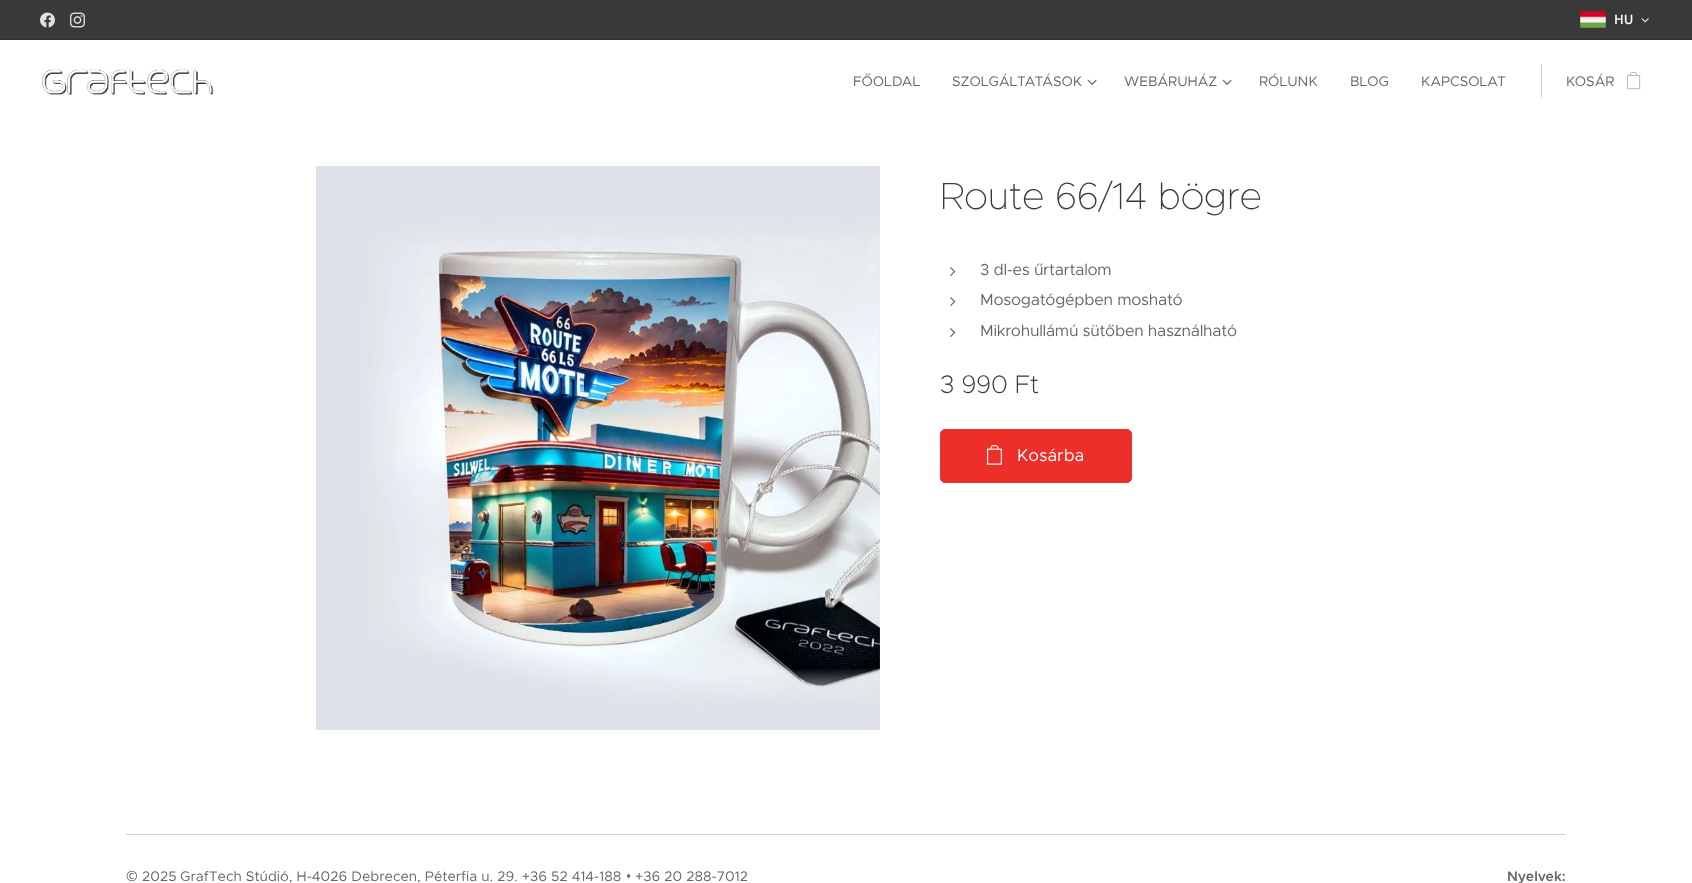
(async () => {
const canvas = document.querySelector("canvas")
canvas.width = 1692
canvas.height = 883
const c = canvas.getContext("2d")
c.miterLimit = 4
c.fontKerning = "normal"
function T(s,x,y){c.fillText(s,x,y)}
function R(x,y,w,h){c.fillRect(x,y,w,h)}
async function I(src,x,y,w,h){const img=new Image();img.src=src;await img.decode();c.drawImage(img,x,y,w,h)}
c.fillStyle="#fff"
R(0,0,1692,883)
c.fillStyle="#393939"
R(0,0,1692,39)
await I("1.png",40,12,15,16)
await I("2.png",70,12,15,16)
await I("3.png",1580,11,26,17)
c.font="600 13px Open Sans"
c.fillStyle="#fff"
T("HU",1614,24)
await I("4.png",1641,18,8,5)
c.fillStyle="#303030"
R(0,39,1692,1)
await I("5.png",42,69,171,26)
c.font="14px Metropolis"
c.fillStyle="#666"
T("FŐOLDAL",853,86)
T("SZOLGÁLTATÁSOK",952,86)
await I("6.png",1087,79,10,6)
T("WEBÁRUHÁZ",1124,86)
await I("6.png",1222,79,10,6)
T("RÓLUNK",1259,86)
T("BLOG",1350,86)
T("KAPCSOLAT",1421,86)
c.fillStyle="#d1d1d1"
R(1541,64,1,34)
c.fillStyle="#666"
T("KOSÁR",1566,86)
await I("7.png",1627,72,14,18)
await I("8.png",316,166,564,564)
c.letterSpacing="-0.25px"
c.font="100 38px Metropolis"
c.fillStyle="#393939"
T("Route 66/14 bögre",940,209)
await I("9.png",950,267,6,9)
c.font="16px Metropolis"
c.fillStyle="#666"
T("3 dl-es űrtartalom",980,275)
await I("9.png",950,297,6,9)
T("Mosogatógépben mosható",980,305)
await I("9.png",950,328,6,9)
T("Mikrohullámú sütőben használható",980,336)
c.font="200 25.5px Metropolis"
c.fillStyle="#393939"
T("3 990 Ft",940,393)
c.fillStyle="#ed2e29"
c.beginPath()
c.roundRect(940.5,429.5,191,53,4.5)
c.fill()
c.strokeStyle="#ed2e29"
c.stroke()
await I("10.png",987,445,15,20)
c.letterSpacing="0px"
c.font="17px Metropolis"
c.fillStyle="#fff"
T("Kosárba",1017,461)
c.fillStyle="#d4d4d4"
R(126,834,1440,1)
c.font="14px Noto Sans"
c.fillStyle="#666"
T("©",126,881)
c.font="14px Metropolis"
T("2025",142,881)
T("GrafTech Stúdió, H-4026 Debrecen, Péterfia u. 29. +36 52 414-188",180,881)
c.font="14px Noto Sans"
T("•",626,881)
c.font="14px Metropolis"
T("+36 20 288-7012",635,881)
c.font="600 14px Metropolis"
T("Nyelvek:",1507,881)
})()
